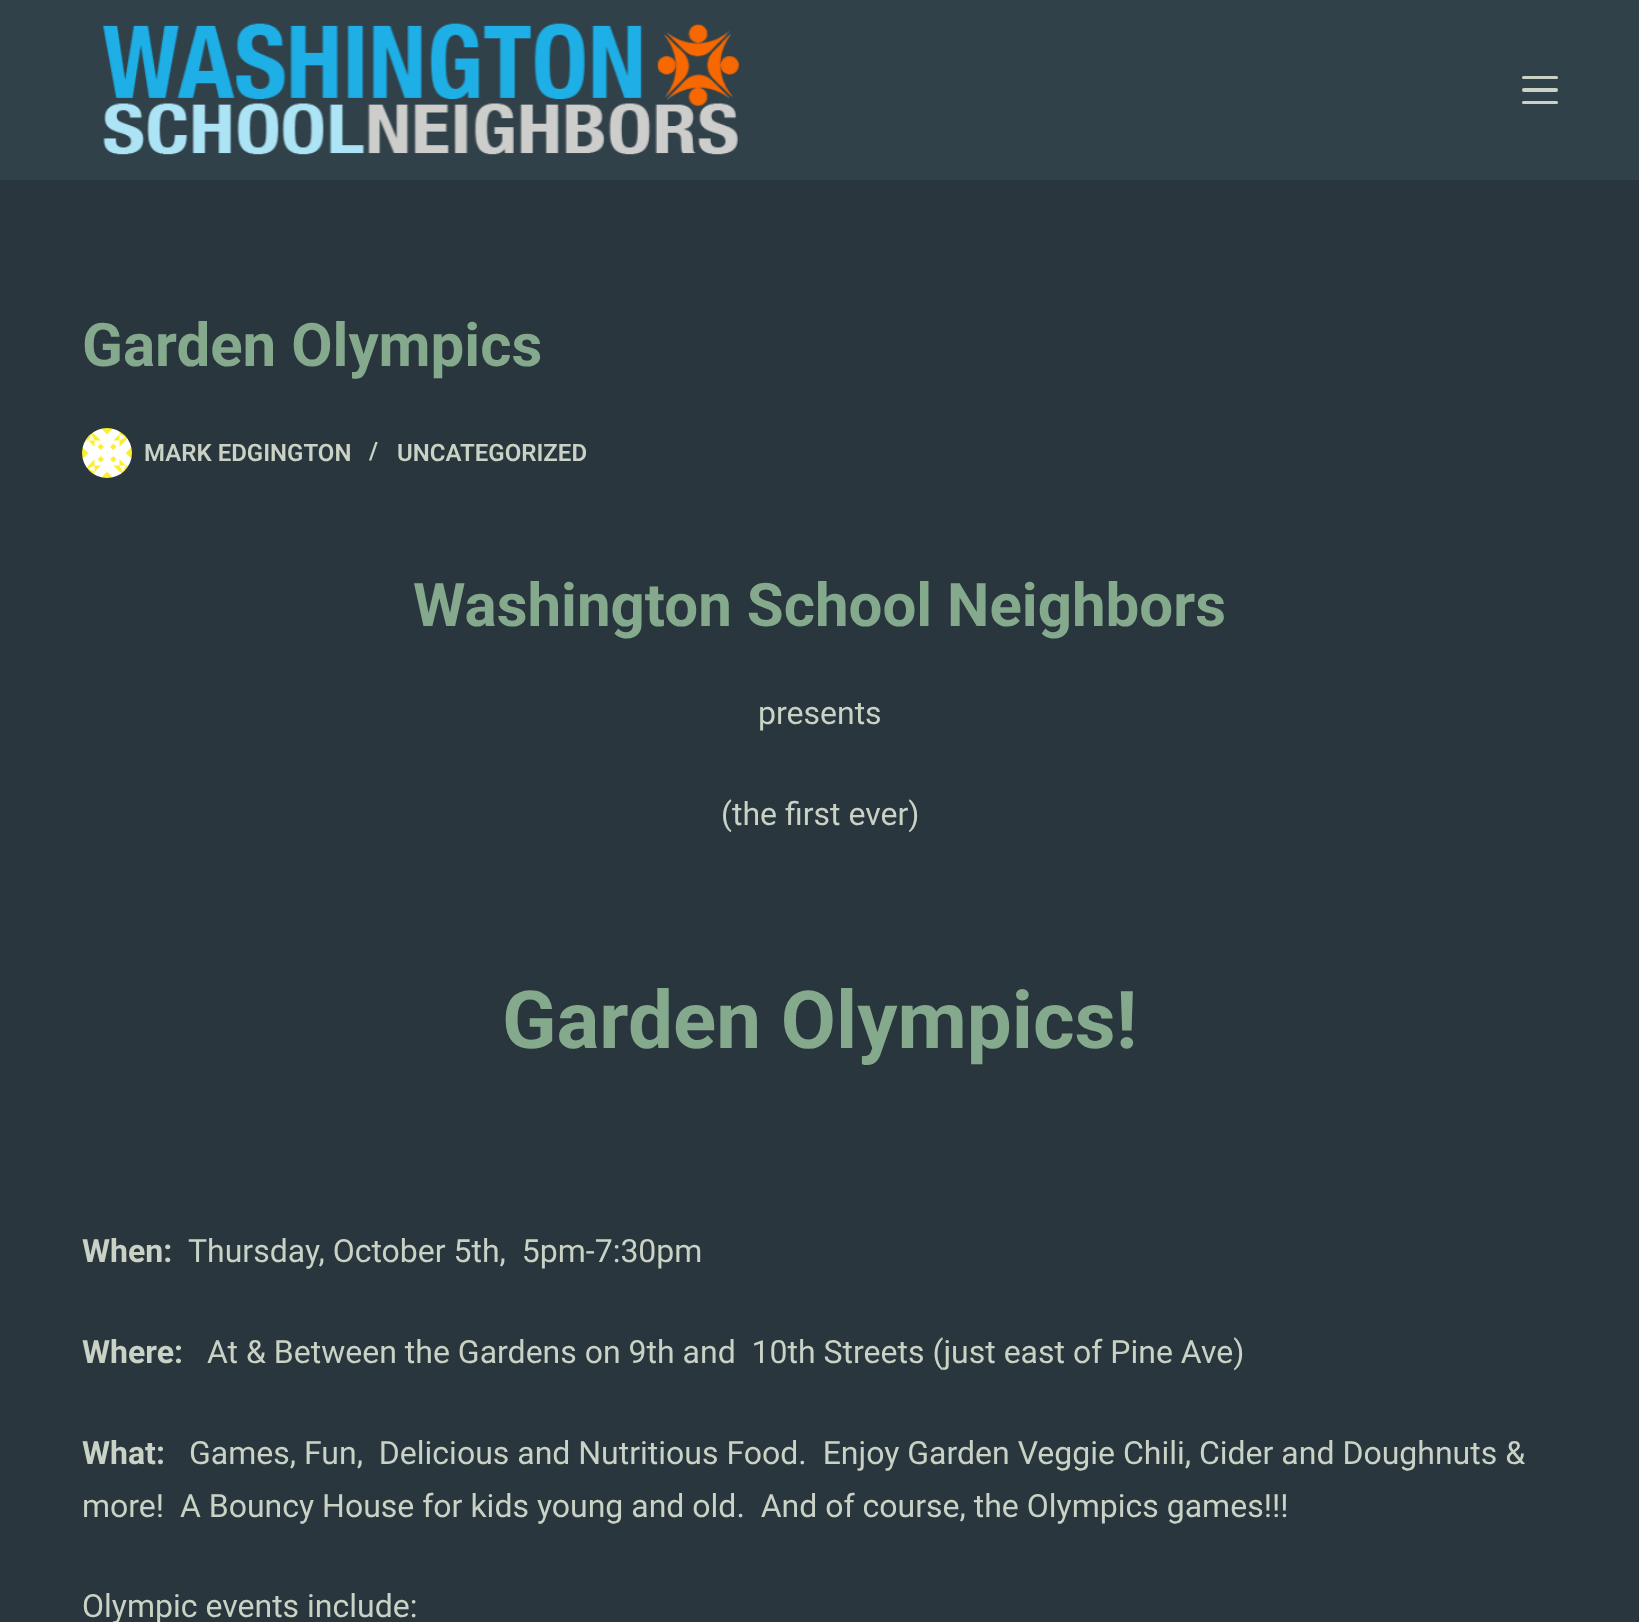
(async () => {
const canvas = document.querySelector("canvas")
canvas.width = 1639
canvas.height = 1622
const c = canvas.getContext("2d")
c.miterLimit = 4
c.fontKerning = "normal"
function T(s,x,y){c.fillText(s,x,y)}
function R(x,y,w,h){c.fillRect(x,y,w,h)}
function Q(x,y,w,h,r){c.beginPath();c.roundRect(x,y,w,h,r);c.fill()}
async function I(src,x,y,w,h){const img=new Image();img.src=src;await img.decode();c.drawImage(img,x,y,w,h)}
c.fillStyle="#29363d"
R(0,0,1639,1622)
c.fillStyle="#314149"
R(0,0,1639,180)
await I("1.png",102,23,638,132)
c.fillStyle="#cad2c5"
Q(1522,76,36,3,1.5)
Q(1522,88,36,4,2)
Q(1522,101,36,3,1.5)
c.font="bold 60px Roboto"
c.fillStyle="#84a98c"
T("Garden Olympics",82,366)
await I("2.png",82,428,50,50)
c.font="600 24px Roboto"
c.fillStyle="#cad2c5"
T("MARK EDGINGTON",144,461)
T("/",369,459)
T("UNCATEGORIZED",397,461)
c.font="bold 60px Roboto"
c.fillStyle="#84a98c"
T("Washington School Neighbors",413,626)
c.font="32px Roboto"
c.fillStyle="#cad2c5"
T("presents",758,724)
T("(the first ever)",721,825)
c.font="bold 80px Roboto"
c.fillStyle="#84a98c"
T("Garden Olympics!",502,1048)
c.font="bold 32px Roboto"
c.fillStyle="#cad2c5"
T("When:",82,1262)
c.font="32px Roboto"
T("Thursday, October 5th,  5pm-7:30pm",188,1262)
c.font="bold 32px Roboto"
T("Where:",82,1363)
c.font="32px Roboto"
T("At & Between the Gardens on 9th and  10th Streets (just east of Pine Ave)",207,1363)
c.font="bold 32px Roboto"
T("What:",82,1464)
c.font="32px Roboto"
T("Games, Fun,  Delicious and Nutritious Food.  Enjoy Garden Veggie Chili, Cider and Doughnuts &",189,1464)
T("more!  A Bouncy House for kids young and old.  And of course, the Olympics games!!!",82,1517)
T("Olympic events include:",82,1617)
})()
